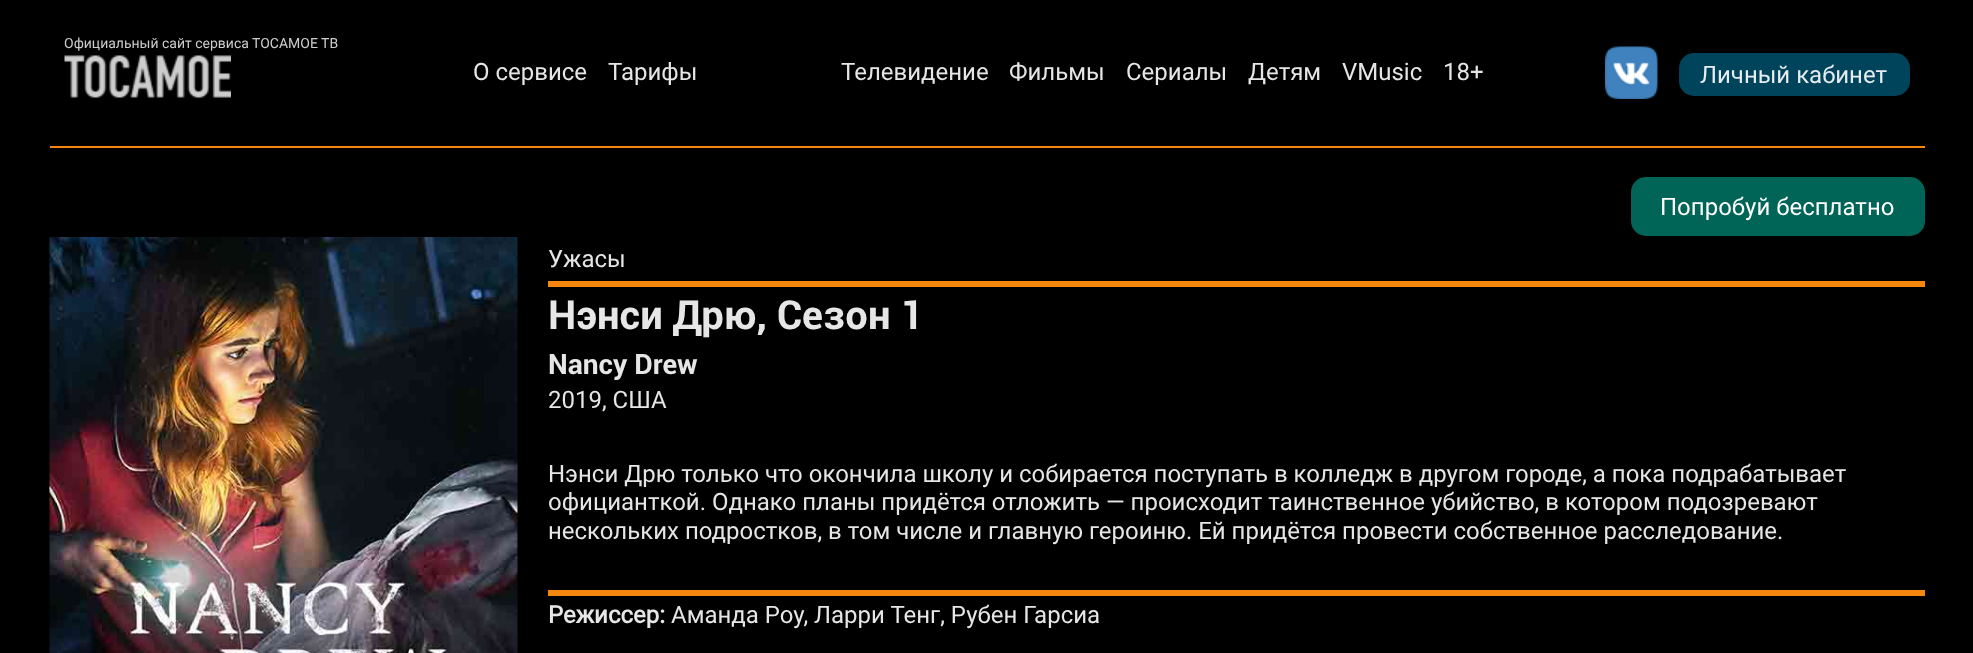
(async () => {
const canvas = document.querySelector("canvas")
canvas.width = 1973
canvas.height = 653
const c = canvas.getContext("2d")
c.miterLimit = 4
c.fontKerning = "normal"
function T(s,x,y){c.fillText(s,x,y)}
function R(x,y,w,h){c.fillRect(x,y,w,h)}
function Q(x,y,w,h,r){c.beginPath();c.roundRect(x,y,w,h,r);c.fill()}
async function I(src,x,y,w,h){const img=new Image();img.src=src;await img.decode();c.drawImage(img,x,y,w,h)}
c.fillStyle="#000"
R(0,0,1973,653)
c.font="14px Roboto"
c.fillStyle="#cdcdcd"
T("Официальный сайт сервиса ТОСАМОЕ ТВ",64,48)
await I("1.png",64,55,167,43)
c.font="24px Roboto"
c.fillStyle="#e6e6e6"
T("О сервисе",473,80)
T("Тарифы",608,80)
T("Телевидение",841,80)
T("Фильмы",1009,80)
T("Сериалы",1126,80)
T("Детям",1248,80)
T("VMusic",1342,80)
T("18+",1443,80)
await I("2.png",1605,46,53,53)
c.fillStyle="#00445b"
Q(1679,53,231,43,15)
c.fillStyle="#e6ecef"
T("Личный кабинет",1700,83)
c.fillStyle="#f6870e"
R(50,146,1875,2)
c.fillStyle="#006556"
Q(1631,177,294,59,15)
c.fillStyle="#fff"
T("Попробуй бесплатно",1660,215)
await I("3.png",49,237,469,416)
c.fillStyle="#f6870e"
R(548,281,1377,6)
c.fillStyle="#e6e6e6"
T("Ужасы",548,267)
c.font="bold 40px Roboto"
T("Нэнси Дрю, Сезон 1",548,329)
c.font="bold 28px Roboto"
T("Nancy Drew",548,374)
c.font="24px Roboto"
T("2019, США",548,408)
c.fillStyle="#f6870e"
R(548,590,1377,6)
c.fillStyle="#e6e6e6"
T("Нэнси Дрю только что окончила школу и собирается поступать в колледж в другом городе, а пока подрабатывает",548,482)
T("официанткой. Однако планы придётся отложить — происходит таинственное убийство, в котором подозревают",548,510)
T("нескольких подростков, в том числе и главную героиню. Ей придётся провести собственное расследование.",548,539)
c.font="bold 24px 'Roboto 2'"
T("Режиссер:",548,623)
c.font="24px Roboto"
T("Аманда Роу, Ларри Тенг, Рубен Гарсиа",671,623)
})()
